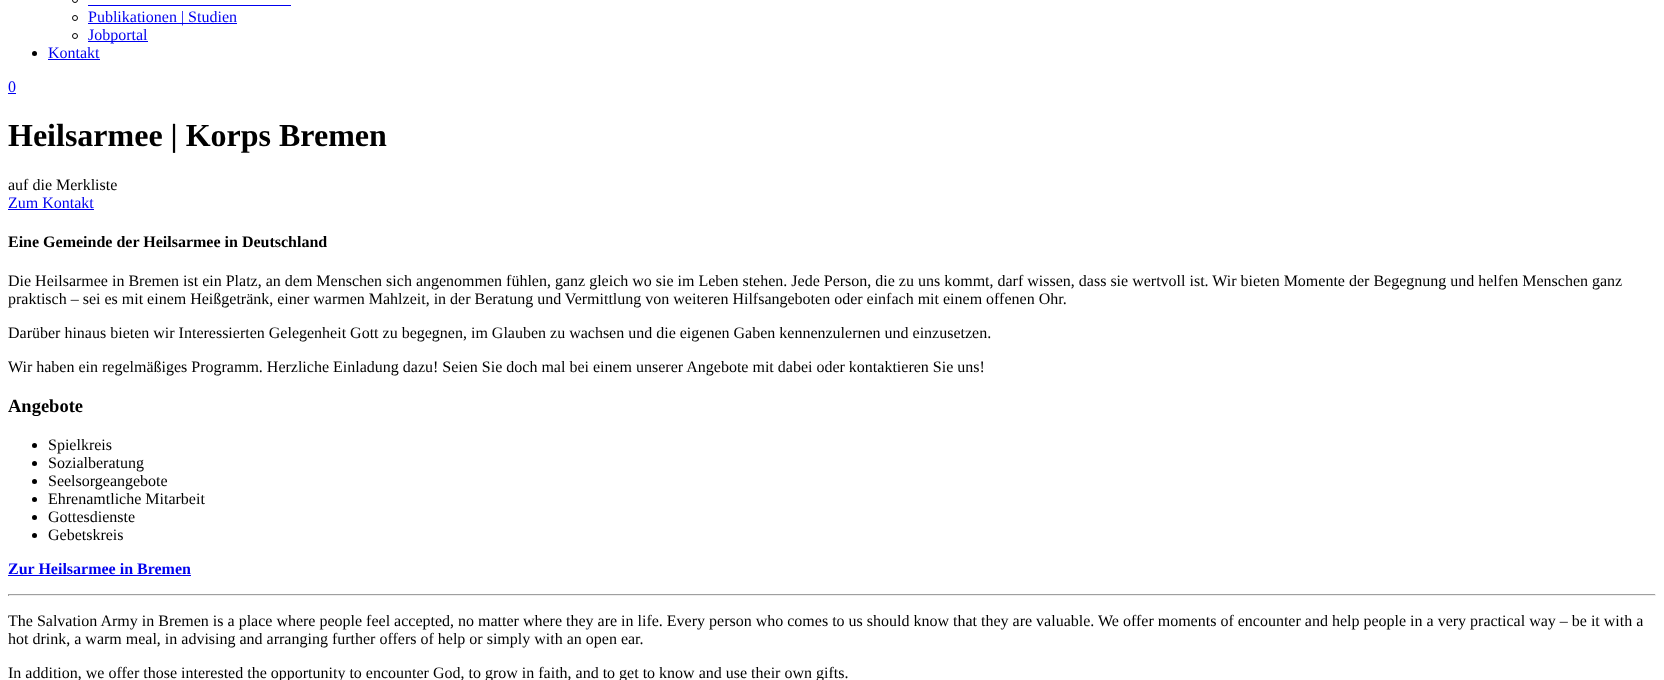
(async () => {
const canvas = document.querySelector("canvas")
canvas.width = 1664
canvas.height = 680
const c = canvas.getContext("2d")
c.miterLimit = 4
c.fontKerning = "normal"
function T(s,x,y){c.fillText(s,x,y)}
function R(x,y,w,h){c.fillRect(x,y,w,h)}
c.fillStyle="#fff"
R(0,0,1664,680)
c.beginPath()
c.arc(75,0,2.5,0,7)
c.strokeStyle="#000"
c.stroke()
c.fillStyle="#00e"
R(88,5,203,1)
c.beginPath()
c.arc(75,18,2.5,0,7)
c.stroke()
R(88,23,149,1)
c.font="16px Liberation Serif"
T("Publikationen | Studien",88,22)
c.beginPath()
c.arc(75,36,2.5,0,7)
c.stroke()
R(88,41,60,1)
T("Jobportal",88,40)
c.fillStyle="#000"
c.beginPath()
c.arc(34.5,53.5,2.5,0,7)
c.fill()
c.fillStyle="#00e"
T("Kontakt",48,58)
R(48,59,52,1)
T("0",8,92)
R(8,93,8,1)
c.font="bold 32px Liberation Serif"
c.fillStyle="#000"
T("Heilsarmee | Korps Bremen",8,146)
c.font="16px Liberation Serif"
T("auf die Merkliste",8,190)
c.fillStyle="#00e"
T("Zum Kontakt",8,208)
R(8,209,86,1)
c.font="bold 16px Liberation Serif"
c.fillStyle="#000"
T("Eine Gemeinde der Heilsarmee in Deutschland",8,247)
c.font="16px Liberation Serif"
T("Die Heilsarmee in Bremen ist ein Platz, an dem Menschen sich angenommen fühlen, ganz gleich wo sie im Leben stehen. Jede Person, die zu uns kommt, darf wissen, dass sie wertvoll ist. Wir bieten Momente der Begegnung und helfen Menschen ganz",8,286)
T("praktisch – sei es mit einem Heißgetränk, einer warmen Mahlzeit, in der Beratung und Vermittlung von weiteren Hilfsangeboten oder einfach mit einem offenen Ohr.",8,304)
T("Darüber hinaus bieten wir Interessierten Gelegenheit Gott zu begegnen, im Glauben zu wachsen und die eigenen Gaben kennenzulernen und einzusetzen.",8,338)
T("Wir haben ein regelmäßiges Programm. Herzliche Einladung dazu! Seien Sie doch mal bei einem unserer Angebote mit dabei oder kontaktieren Sie uns!",8,372)
c.font="bold 18.5px Liberation Serif"
T("Angebote",8,412)
c.beginPath()
c.arc(34.5,445.5,2.5,0,7)
c.fill()
c.font="16px Liberation Serif"
T("Spielkreis",48,450)
c.beginPath()
c.arc(34.5,463.5,2.5,0,7)
c.fill()
T("Sozialberatung",48,468)
c.beginPath()
c.arc(34.5,481.5,2.5,0,7)
c.fill()
T("Seelsorgeangebote",48,486)
c.beginPath()
c.arc(34.5,499.5,2.5,0,7)
c.fill()
T("Ehrenamtliche Mitarbeit",48,504)
c.beginPath()
c.arc(34.5,517.5,2.5,0,7)
c.fill()
T("Gottesdienste",48,522)
c.beginPath()
c.arc(34.5,535.5,2.5,0,7)
c.fill()
T("Gebetskreis",48,540)
c.font="bold 16px Liberation Serif"
c.fillStyle="#00e"
T("Zur Heilsarmee in Bremen",8,574)
R(8,575,183,1)
c.fillStyle="#9f9f9f"
R(8,594,1648,1)
c.fillStyle="#eee"
R(1655,594,1,2)
R(8,595,1648,1)
c.fillStyle="#9f9f9f"
R(8,594,1,2)
c.font="16px Liberation Serif"
c.fillStyle="#000"
T("The Salvation Army in Bremen is a place where people feel accepted, no matter where they are in life. Every person who comes to us should know that they are valuable. We offer moments of encounter and help people in a very practical way – be it with a",8,626)
T("hot drink, a warm meal, in advising and arranging further offers of help or simply with an open ear.",8,644)
T("In addition, we offer those interested the opportunity to encounter God, to grow in faith, and to get to know and use their own gifts.",8,678)
})()
